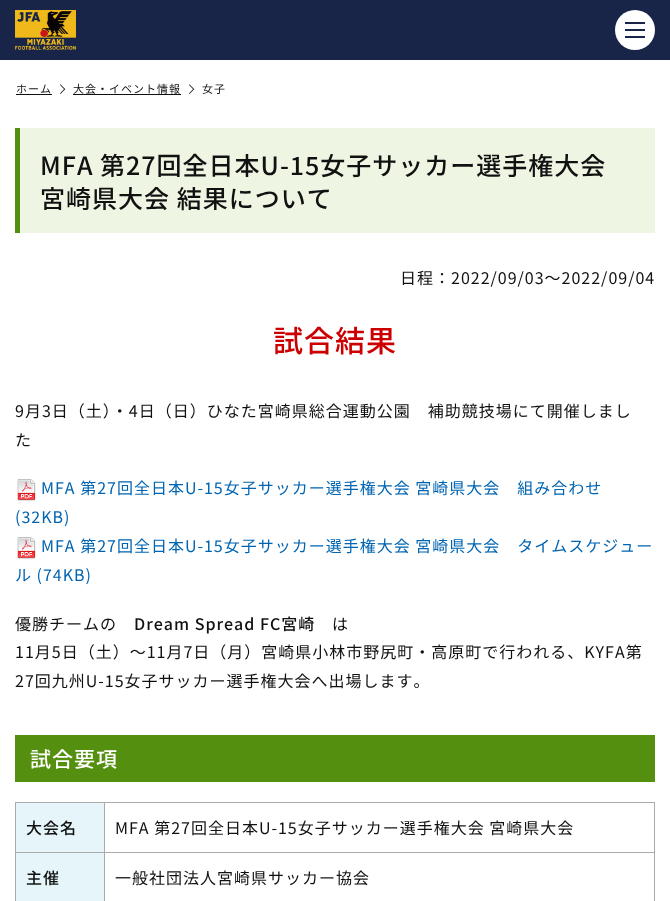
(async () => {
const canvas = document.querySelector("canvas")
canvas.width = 670
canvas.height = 901
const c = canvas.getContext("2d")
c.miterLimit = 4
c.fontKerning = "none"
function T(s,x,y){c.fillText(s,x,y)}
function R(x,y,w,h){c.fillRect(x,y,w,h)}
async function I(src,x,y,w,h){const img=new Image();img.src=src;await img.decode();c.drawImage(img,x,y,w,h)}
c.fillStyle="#fff"
R(0,0,670,901)
c.fillStyle="#182549"
R(0,0,670,60)
await I("1.png",15,10,61,40)
c.fillStyle="#fff"
c.beginPath()
c.arc(635,30,20,0,7)
c.fill()
c.fillStyle="#182549"
R(625,22,20,2)
R(625,29,20,2)
R(625,36,20,2)
c.letterSpacing="1px"
c.font="11px Noto Sans JP"
c.fillStyle="#111"
T("ホーム",16,93)
R(16,94,36,1)
await I("2.png",60,84,6,10)
T("大会・イベント情報",73,93)
R(73,94,108,1)
await I("2.png",189,84,6,10)
T("女子",202,93)
c.fillStyle="#eef6e3"
R(20,128,635,105)
c.fillStyle="#558f0f"
R(15,128,5,105)
c.font="500 25px Noto Sans JP"
c.fillStyle="#111"
T("MFA 第27回全日本U-15女子サッカー選手権大会",40,175)
T("宮崎県大会 結果について",40,208)
c.font="16px Noto Sans JP"
T("日程：2022/09/03〜2022/09/04",400,284)
c.font="500 30px Noto Sans JP"
c.fillStyle="#c00"
T("試合結果",273,352)
c.font="16px Noto Sans JP"
c.fillStyle="#111"
T("9月3日（土）・4日（日）ひなた宮崎県総合運動公園　補助競技場にて開催しまし",15,417)
T("た",15,446)
await I("3.png",17,479,19,22)
c.fillStyle="#0064b1"
T("MFA 第27回全日本U-15女子サッカー選手権大会 宮崎県大会　組み合わせ",41,494)
T("(32KB)",15,523)
await I("3.png",17,537,19,22)
T("MFA 第27回全日本U-15女子サッカー選手権大会 宮崎県大会　タイムスケジュー",41,552)
T("ル (74KB)",15,581)
c.fillStyle="#111"
T("優勝チームの",15,630)
c.font="500 16px Noto Sans JP"
T("Dream Spread FC宮崎",134,630)
c.font="16px Noto Sans JP"
T("は",332,630)
T("11月5日（土）～11月7日（月）宮崎県小林市野尻町・高原町で行われる、KYFA第",15,658)
T("27回九州U-15女子サッカー選手権大会へ出場します。",15,687)
c.fillStyle="#558f0f"
R(15,735,640,47)
c.font="500 21px Noto Sans JP"
c.fillStyle="#fff"
T("試合要項",30,767)
c.fillStyle="#e5f5fa"
R(16,803,88,49)
c.fillStyle="#aaa"
R(104,802,551,1)
R(104,852,551,1)
R(104,852,1,49)
R(15,852,90,1)
R(104,802,1,51)
R(15,802,90,1)
R(15,852,1,49)
R(15,802,1,51)
c.font="500 16px Noto Sans JP"
c.fillStyle="#111"
T("大会名",26,834)
c.fillStyle="#aaa"
R(654,852,1,49)
R(654,802,1,51)
c.font="16px Noto Sans JP"
c.fillStyle="#111"
T("MFA 第27回全日本U-15女子サッカー選手権大会 宮崎県大会",115,834)
c.fillStyle="#e5f5fa"
R(16,853,88,48)
c.font="500 16px Noto Sans JP"
c.fillStyle="#111"
T("主催",26,884)
c.font="16px Noto Sans JP"
T("一般社団法人宮崎県サッカー協会",115,884)
})()
